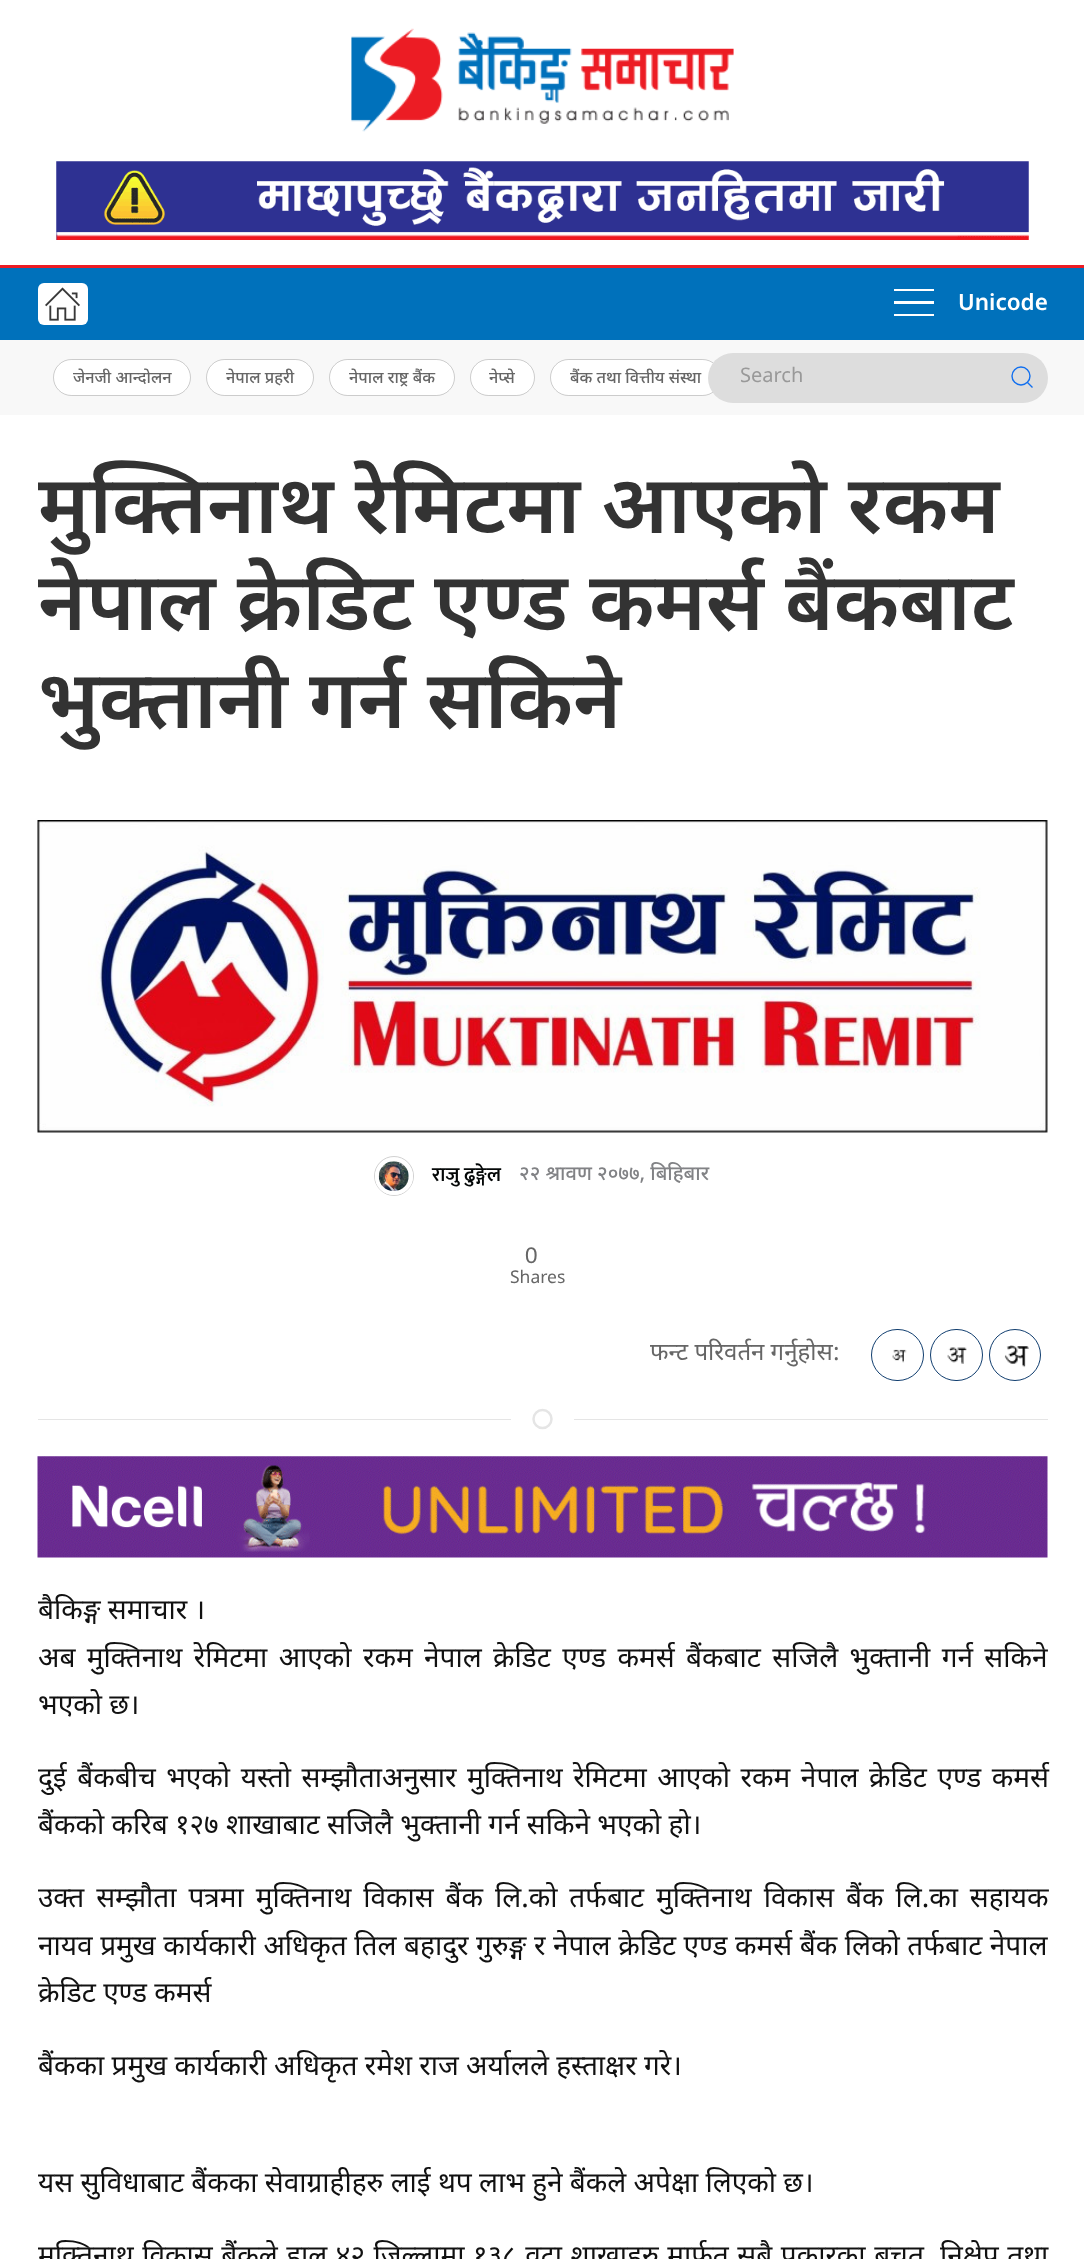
(async () => {
const canvas = document.querySelector("canvas")
canvas.width = 1084
canvas.height = 2259
const c = canvas.getContext("2d")
c.miterLimit = 4
c.fontKerning = "normal"
function T(s,x,y){c.fillText(s,x,y)}
function R(x,y,w,h){c.fillRect(x,y,w,h)}
function Q(x,y,w,h,r){c.beginPath();c.roundRect(x,y,w,h,r);c.fill()}
async function I(src,x,y,w,h){const img=new Image();img.src=src;await img.decode();c.drawImage(img,x,y,w,h)}
let path
c.fillStyle="#fff"
R(0,0,1084,2259)
await I("1.png",351,28,383,104)
await I("2.png",56,161,973,79)
c.fillStyle="#0071bb"
R(0,268,1084,72)
c.fillStyle="#ec1c24"
R(0,265,1084,3)
c.fillStyle="#fff"
Q(38,283,50,42,6)
await I("3.png",45,287,35,34)
R(894,289,40,2)
R(894,301,40,3)
R(894,314,40,2)
c.font="600 22.5px Noto Sans Devanagari"
T("Unicode",958,310)
c.fillStyle="#f8f8f8"
R(0,340,1084,75)
c.fillStyle="#fff"
Q(53,359,138,37,18.5)
c.beginPath()
c.roundRect(53.5,359.5,137,36,18)
c.strokeStyle="#00000033"
c.stroke()
c.font="500 16.25px Noto Sans"
c.fillStyle="#666"
T("जेनजी आन्दोलन",73,383)
c.fillStyle="#fff"
Q(206,359,108,37,18.5)
c.beginPath()
c.roundRect(206.5,359.5,107,36,18)
c.stroke()
c.fillStyle="#666"
T("नेपाल प्रहरी",226,383)
c.fillStyle="#fff"
Q(329,359,126,37,18.5)
c.beginPath()
c.roundRect(329.5,359.5,125,36,18)
c.stroke()
c.fillStyle="#666"
T("नेपाल राष्ट्र बैंक",349,383)
c.fillStyle="#fff"
Q(470,359,65,37,18.5)
c.beginPath()
c.roundRect(470.5,359.5,64,36,18)
c.stroke()
c.fillStyle="#666"
T("नेप्से",489,383)
c.fillStyle="#fff"
Q(550,359,171,37,18.5)
c.beginPath()
c.roundRect(550.5,359.5,170,36,18)
c.stroke()
c.fillStyle="#666"
T("बैंक तथा वित्तीय संस्था",570,383)
c.fillStyle="#ddd"
Q(708,353,340,50,25)
c.font="20px Noto Sans Devanagari"
c.fillStyle="#999"
T("Search",740,382)
c.beginPath()
c.arc(1021,376,9,0,7)
c.strokeStyle="#116fef"
c.lineWidth=1.4
c.stroke()
path = new Path2D("M1027.5 382.5l5 5z")
c.stroke(path)
c.font="600 81.25px Noto Sans Devanagari"
c.fillStyle="#333"
T("मुक्तिनाथ रेमिटमा आएको रकम",38,533)
T("नेपाल क्रेडिट एण्ड कमर्स बैंकबाट",38,630)
T("भुक्तानी गर्न सकिने",38,728)
await I("4.png",37,820,1011,313)
c.beginPath()
c.arc(394,1176,19.5,0,7)
c.strokeStyle="#d1d1d1"
c.lineWidth=1
c.stroke()
c.fillStyle="#fff"
c.beginPath()
c.roundRect(377,1160,34,33,16.5)
c.fill()
c.strokeStyle="#fff"
c.lineWidth=4
c.stroke()
await I("5.png",378,1161,31,30)
c.font="600 20px Mukta"
c.fillStyle="#040707"
T("राजु ढुङ्गेल",432,1181)
c.font="500 20px Noto Sans Devanagari"
c.fillStyle="#818285"
T("२२ श्रावण २०७७, बिहिबार",519,1180)
c.font="22.5px Liberation Sans"
c.fillStyle="#666"
T("0",525,1263)
c.font="17.5px Noto Sans Devanagari"
T("Shares",510,1283)
c.font="24px Noto Sans Devanagari"
T("फन्ट परिवर्तन गर्नुहोस:",650,1360)
c.beginPath()
c.roundRect(871.5,1329.5,52,51,25.5)
c.strokeStyle="#113e6f"
c.lineWidth=1
c.stroke()
await I("6.png",892,1349,15,14)
c.beginPath()
c.roundRect(930.5,1329.5,52,51,25.5)
c.stroke()
await I("7.png",947,1347,20,17)
c.beginPath()
c.arc(1015,1355,25.5,0,7)
c.stroke()
await I("8.png",1004,1345,25,23)
c.beginPath()
c.arc(542.5,1419,9,0,7)
c.strokeStyle="#e5e5e5"
c.lineWidth=2.5
c.stroke()
c.fillStyle="#e5e5e5"
R(38,1419,473,1)
R(574,1419,474,1)
await I("9.png",37,1456,1011,102)
c.font="28px Noto Sans Devanagari"
c.fillStyle="#111"
T("बैकिङ्ग समाचार ।",38,1619)
c.wordSpacing="4.1px"
T("अब मुक्तिनाथ रेमिटमा आएको रकम नेपाल क्रेडिट एण्ड कमर्स बैंकबाट सजिलै भुक्तानी गर्न सकिने",38,1667)
c.wordSpacing="0px"
T("भएको छ।",38,1714)
c.wordSpacing="3.25px"
T("दुई बैंकबीच भएको यस्तो सम्झौताअनुसार मुक्तिनाथ रेमिटमा आएको रकम नेपाल क्रेडिट एण्ड कमर्स",38,1787)
c.wordSpacing="0px"
T("बैंकको करिब १२७ शाखाबाट सजिलै भुक्तानी गर्न सकिने भएको हो।",38,1834)
c.wordSpacing="4.6px"
T("उक्त सम्झौता पत्रमा मुक्तिनाथ विकास बैंक लि.को तर्फबाट मुक्तिनाथ विकास बैंक लि.का सहायक",38,1907)
c.wordSpacing="0.3px"
T("नायव प्रमुख कार्यकारी अधिकृत तिल बहादुर गुरुङ्ग र नेपाल क्रेडिट एण्ड कमर्स बैंक लिको तर्फबाट नेपाल",38,1955)
c.wordSpacing="0px"
T("क्रेडिट एण्ड कमर्स",38,2002)
T("बैंकका प्रमुख कार्यकारी अधिकृत रमेश राज अर्यालले हस्ताक्षर गरे।",38,2075)
T("यस सुविधाबाट बैंकका सेवाग्राहीहरु लाई थप लाभ हुने बैंकले अपेक्षा लिएको छ।",38,2192)
c.wordSpacing="1.25px"
T("मुक्तिनाथ विकास बैंकले हाल ४२ जिल्लामा १३८ वटा शाखाहरु मार्फत सबै प्रकारका बचत, निक्षेप तथा",38,2265)
})()
